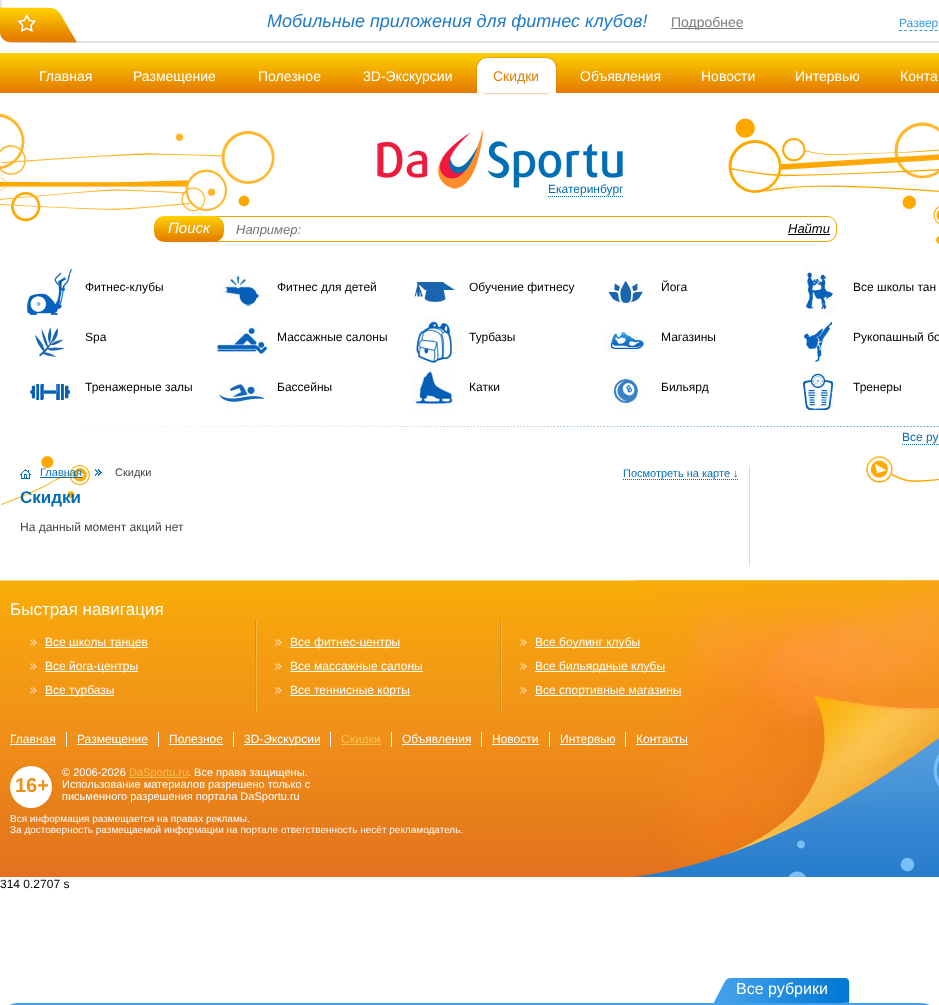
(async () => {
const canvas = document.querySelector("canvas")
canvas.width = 939
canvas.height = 1005
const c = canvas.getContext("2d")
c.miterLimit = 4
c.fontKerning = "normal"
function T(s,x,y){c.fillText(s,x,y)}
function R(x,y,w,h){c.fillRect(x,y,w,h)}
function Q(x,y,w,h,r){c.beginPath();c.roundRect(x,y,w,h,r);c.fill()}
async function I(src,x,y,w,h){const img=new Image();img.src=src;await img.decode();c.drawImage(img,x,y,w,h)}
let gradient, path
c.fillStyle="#fff"
R(0,0,939,1005)
c.strokeStyle="#e2e2e2"
c.lineWidth=2
c.strokeRect(1,-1,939,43)
await I("1.png",39,7,38,36)
await I("2.png",0,7,39,36)
c.font="italic 18px Liberation Sans"
c.fillStyle="#227acb"
T("Мобильные приложения для фитнес клубов!",267,27)
c.fillStyle="#7d7d7d"
R(671,28,72,1)
c.font="14px Liberation Sans"
T("Подробнее",671,27)
c.font="12px Liberation Sans"
c.fillStyle="#3799e6"
T("Развер",899,27)
path = new Path2D("M899 30.5h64")
c.strokeStyle="#3799e6"
c.lineWidth=1
c.setLineDash([3,2.08])
c.stroke(path)
gradient = c.createLinearGradient(0,53,0,93)
gradient.addColorStop(0,"#fdd200")
gradient.addColorStop(1,"#e47800")
c.fillStyle = gradient
R(0,53,939,40)
c.font="14px Liberation Sans"
c.fillStyle="#fff"
T("Главная",39,81)
T("Размещение",133,81)
T("Полезное",258,81)
T("3D-Экскурсии",363,81)
c.fillStyle="#d37102"
c.filter="blur(1px)"
c.beginPath()
c.roundRect(477,58,79,35,10)
c.fill()
c.filter="none"
c.fillStyle="#fff"
c.beginPath()
c.roundRect(477,58,79,35,[10,10,0,0])
c.fill()
c.fillStyle="#e67f00"
T("Скидки",493,81)
c.fillStyle="#fff"
T("Объявления",580,81)
T("Новости",701,81)
T("Интервью",795,81)
T("Конта",900,81)
await I("3.png",0,113,275,109)
await I("4.png",728,118,211,126)
await I("5.png",377,128,246,61)
c.font="12px Liberation Sans"
c.fillStyle="#006eb5"
T("Екатеринбург",548,193)
path = new Path2D("M548 196.5h75")
c.strokeStyle="#006eb5"
c.setLineDash([1,1])
c.stroke(path)
c.beginPath()
c.roundRect(163.5,216.5,673,25,9.5)
c.strokeStyle="#efa100"
c.setLineDash([])
c.stroke()
gradient = c.createLinearGradient(154,216,154,242)
gradient.addColorStop(0,"#fdd200")
gradient.addColorStop(1,"#e47800")
c.fillStyle = gradient
Q(154,216,70,26,10)
c.font="italic 15px Liberation Sans"
c.fillStyle="#fff"
T("Поиск",168,233)
c.font="italic 13px Liberation Sans"
c.fillStyle="#757575"
T("Например:",236,234)
c.fillStyle="#000"
T("Найти",788,233)
R(788,234,42,1)
await I("6.png",64,426,875,1)
await I("7.png",27,269,45,46)
c.font="12px Liberation Sans"
T("Фитнес-клубы",85,291)
await I("8.png",220,275,40,32)
T("Фитнес для детей",277,291)
await I("9.png",414,282,41,20)
T("Обучение фитнесу",469,291)
await I("10.png",608,280,35,23)
T("Йога",661,291)
await I("11.png",805,267,32,50)
T("Все школы тан",853,291)
await I("12.png",35,327,30,30)
T("Spa",85,341)
await I("13.png",217,325,50,32)
T("Массажные салоны",277,341)
await I("14.png",409,317,48,50)
T("Турбазы",469,341)
await I("15.png",605,325,40,24)
T("Магазины",661,341)
await I("16.png",804,322,28,40)
T("Рукопашный бо",853,341)
await I("17.png",28,384,47,16)
T("Тренажерные залы",85,391)
await I("18.png",217,383,50,26)
T("Бассейны",277,391)
await I("19.png",411,369,48,40)
T("Катки",469,391)
await I("20.png",610,377,32,32)
T("Бильярд",661,391)
await I("21.png",803,367,32,50)
T("Тренеры",853,391)
c.fillStyle="#006eb5"
T("Все ру",902,441)
path = new Path2D("M902 444.5h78")
c.strokeStyle="#006eb5"
c.setLineDash([1,1])
c.stroke(path)
await I("22.png",1,456,89,50)
await I("23.png",866,456,73,27)
await I("24.png",20,469,11,10)
c.font="11px Liberation Sans"
c.fillStyle="#0670bd"
T("Главная",40,476)
R(40,477,42,1)
await I("25.png",95,469,7,7)
c.fillStyle="#444"
T("Скидки",115,476)
path = new Path2D("M623 479.5h116")
c.stroke(path)
c.fillStyle="#006eb5"
T("Посмотреть на карте ↓",623,477)
c.font="bold 17px Liberation Sans"
T("Скидки",20,503)
c.font="12px Liberation Sans"
c.fillStyle="#444"
T("На данный момент акций нет",20,531)
c.fillStyle="#ddd"
R(749,466,1,100)
await I("26.png",0,580,939,297)
await I("27.png",635,580,304,297)
c.font="17px Liberation Sans"
c.fillStyle="#fff"
T("Быстрая навигация",10,615)
await I("28.png",30,639,7,7)
R(45,647,103,1)
c.font="12px Liberation Sans"
T("Все школы танцев",45,646)
await I("29.png",30,663,7,7)
R(45,671,93,1)
T("Все йога-центры",45,670)
await I("30.png",30,687,7,7)
R(45,695,69,1)
T("Все турбазы",45,694)
await I("31.png",255,620,2,92)
await I("28.png",275,639,7,7)
R(290,647,110,1)
T("Все фитнес-центры",290,646)
await I("29.png",275,663,7,7)
T("Все массажные салоны",290,670)
R(290,671,133,1)
await I("30.png",275,687,7,7)
R(290,695,120,1)
T("Все теннисные корты",290,694)
await I("31.png",500,620,2,92)
await I("28.png",520,639,7,7)
R(535,647,105,1)
T("Все боулинг клубы",535,646)
await I("29.png",520,663,7,7)
R(535,671,130,1)
T("Все бильярдные клубы",535,670)
await I("30.png",520,687,7,7)
R(535,695,146,1)
T("Все спортивные магазины",535,694)
T("Главная",10,743)
R(10,744,46,1)
R(66,732,1,15)
R(77,744,71,1)
T("Размещение",77,743)
R(158,732,1,15)
T("Полезное",169,743)
R(169,744,54,1)
R(233,732,1,15)
R(244,744,76,1)
T("3D-Экскурсии",244,743)
R(330,732,1,15)
c.fillStyle="#fac24c"
R(341,744,40,1)
T("Скидки",341,743)
c.fillStyle="#fff"
R(391,732,1,15)
T("Объявления",402,743)
R(402,744,69,1)
R(481,732,1,15)
T("Новости",492,743)
R(492,744,47,1)
R(549,732,1,15)
R(560,744,55,1)
T("Интервью",560,743)
R(625,732,1,15)
T("Контакты",636,743)
R(636,744,52,1)
c.save()
c.beginPath()
c.rect(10,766,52,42)
c.clip()
c.fillStyle="#d98210"
c.filter="blur(2.5px)"
c.beginPath()
c.roundRect(10,766,42,42,21)
c.fill()
c.filter="none"
c.restore()
c.beginPath()
c.arc(31,787,21,0,7)
c.fill()
c.font="bold 20px Liberation Sans"
c.fillStyle="#ee9013"
T("16+",15,792)
c.font="11px Liberation Sans"
c.fillStyle="#fff"
T("© 2006-2026",62,776)
c.fillStyle="#fac24c"
R(129,777,59,1)
T("DaSportu.ru",129,776)
c.fillStyle="#fff"
T(". Все права защищены.",188,776)
T("Использование материалов разрешено только с",62,788)
T("письменного разрешения портала DaSportu.ru",62,800)
c.font="10px Liberation Sans"
T("Вся информация размещается на правах рекламы.",10,822)
T("За достоверность размещаемой информации на портале ответственность несёт рекламодатель.",10,833)
c.font="12px Liberation Sans"
c.fillStyle="#000"
T("314 0.2707 s",0,888)
gradient = c.createLinearGradient(-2,1003,-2,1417)
gradient.addColorStop(0,"#42a0ea")
gradient.addColorStop(1,"#0479d4")
c.fillStyle = gradient
path = new Path2D("M18 1003h903c11 0 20 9 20 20v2h-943v-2c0-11 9-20 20-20z")
c.fill(path)
await I("32.png",713,978,137,25)
c.font="16px Liberation Sans"
c.fillStyle="#fff"
T("Все рубрики",736,994)
})()
